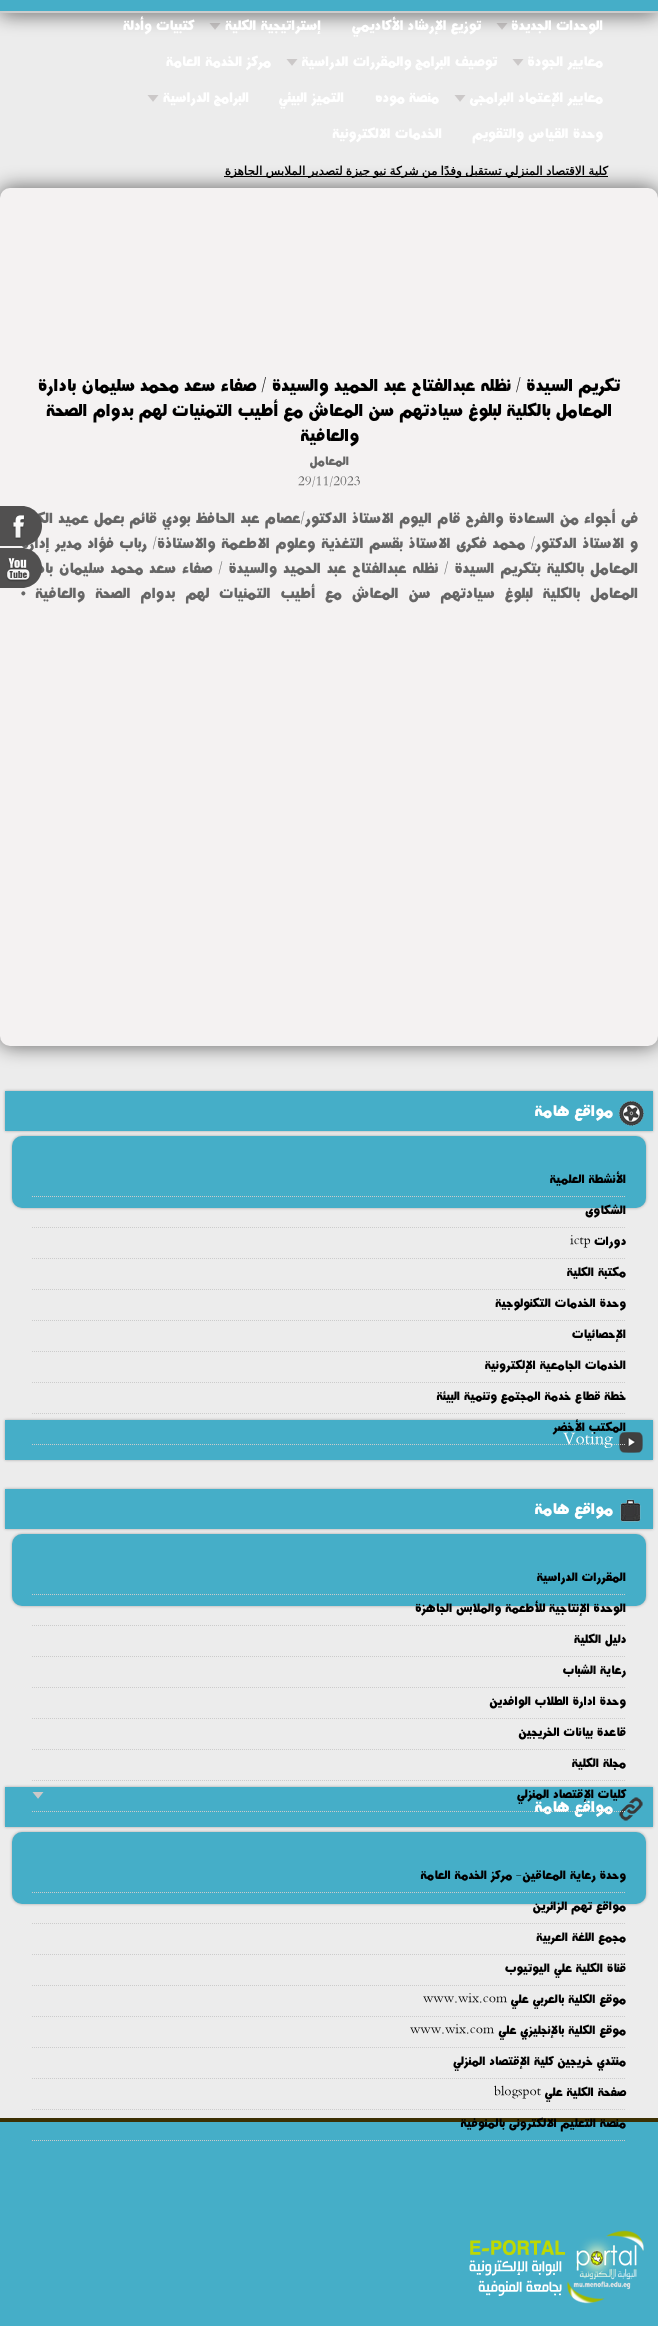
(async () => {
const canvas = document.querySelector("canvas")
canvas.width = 658
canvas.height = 2326
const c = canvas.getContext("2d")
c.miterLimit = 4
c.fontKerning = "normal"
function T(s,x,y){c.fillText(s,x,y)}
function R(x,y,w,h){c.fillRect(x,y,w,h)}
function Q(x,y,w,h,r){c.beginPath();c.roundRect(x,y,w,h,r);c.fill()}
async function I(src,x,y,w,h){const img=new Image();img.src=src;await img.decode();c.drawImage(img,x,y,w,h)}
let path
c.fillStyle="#ececec"
R(0,0,658,2326)
await I("1.png",496,23,12,7)
await I("1.png",209,23,12,7)
c.fillStyle="#000000bf"
c.filter="blur(10px)"
c.beginPath()
c.rect(0,0,658,13)
c.fill()
c.filter="none"
c.fillStyle="#45aec8"
R(0,0,658,11)
c.fillStyle="#ccc"
R(0,11,658,2)
c.direction="rtl"
c.font="500 16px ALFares"
c.fillStyle="#fff"
T("الوحدات الجديدة",603,30)
T("توزيع الإرشاد الأكاديمي",481,30)
T("إستراتيجية الكلية",321,30)
T("كتبيات وأدلة",194,30)
await I("1.png",512,59,12,7)
T("معايير الجودة",603,66)
await I("1.png",286,59,12,7)
T("توصيف البرامج والمقررات الدراسية",497,66)
T("مركز الخدمة العامة",271,66)
await I("1.png",454,95,12,7)
T("معايير الإعتماد البرامجى",603,102)
T("منصة موده",439,102)
T("التميز البيئي",344,102)
await I("1.png",147,95,12,7)
T("البرامج الدراسية",249,102)
T("وحدة القياس والتقويم",603,138)
T("الخدمات الالكترونية",442,138)
c.fillStyle="#00000099"
c.filter="blur(10px)"
c.beginPath()
c.roundRect(0,188,658,858,10)
c.fill()
c.filter="none"
c.fillStyle="#000"
R(224,176,384,1)
c.wordSpacing="-0.5px"
c.font="bold 12px DejaVu Sans"
T("كلية الاقتصاد المنزلي تستقبل وفدًا من شركة نيو جيزة لتصدير الملابس الجاهزة",608,175)
c.fillStyle="#f4f2f2"
Q(0,188,658,858,10)
c.wordSpacing="0px"
c.font="500 20px ALFares"
c.fillStyle="#000"
T("تكريم السيدة / نظله عبدالفتاح عبد الحميد والسيدة / صفاء سعد محمد سليمان بادارة",620,391)
T("المعامل بالكلية لبلوغ سيادتهم سن المعاش مع أطيب التمنيات لهم بدوام الصحة",612,416)
T("والعافية",359,441)
c.font="500 14px ALFares"
c.fillStyle="#666"
T("المعامل",349,465)
c.direction="ltr"
T("29/11/2023",298,486)
c.wordSpacing="0.75px"
c.direction="rtl"
c.font="500 17px ALFares"
T("فى أجواء من السعادة والفرح قام اليوم الاستاذ الدكتور/عصام عبد الحافظ بودي قائم بعمل عميد الكلية",638,523)
c.wordSpacing="1.1px"
T("و الاستاذ الدكتور/ محمد فكرى الاستاذ بقسم التغذية وعلوم الاطعمة والاستاذة/ رباب فؤاد مدير إدارة",638,548)
c.wordSpacing="1.6px"
T("المعامل بالكلية بتكريم السيدة / نظله عبدالفتاح عبد الحميد والسيدة / صفاء سعد محمد سليمان بادارة",638,573)
c.wordSpacing="5.6px"
T("المعامل بالكلية لبلوغ سيادتهم سن المعاش مع أطيب التمنيات لهم بدوام الصحة والعافية",638,598)
c.wordSpacing="0px"
c.direction="ltr"
T("٠",20,598)
c.fillStyle="#515050"
path = new Path2D("M-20 506h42c11 0 20 9 20 20c0 11-9 20-20 20h-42z")
c.fill(path)
await I("2.png",12,515,13,25)
path = new Path2D("M-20 548h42c11 0 20 9 20 20c0 11-9 20-20 20h-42z")
c.fill(path)
await I("3.png",6,558,24,24)
c.fillStyle="#0000004d"
c.filter="blur(1.5px)"
c.beginPath()
c.rect(5,1091,648,40)
c.fill()
c.filter="none"
c.fillStyle="#45aec8"
R(5,1091,648,40)
await I("4.png",618,1101,26,25)
c.direction="rtl"
c.font="500 18px ALFares"
c.fillStyle="#fff"
T("مواقع هامة",613,1116)
c.fillStyle="#0000004d"
c.filter="blur(1.5px)"
c.beginPath()
c.roundRect(12,1136,634,72,10)
c.fill()
c.filter="none"
c.fillStyle="#45aec8"
Q(12,1136,634,72,10)
path = new Path2D("M32 1196.5h594")
c.strokeStyle="#ccc"
c.setLineDash([1,1])
c.stroke(path)
c.font="500 14px ALFares"
c.fillStyle="#000"
T("الأنشطة العلمية",626,1183)
path = new Path2D("M32 1227.5h594")
c.stroke(path)
T("الشكاوى",626,1214)
path = new Path2D("M32 1258.5h594")
c.stroke(path)
T("دورات",626,1245)
c.direction="ltr"
T("ictp",570,1245)
path = new Path2D("M32 1289.5h594")
c.stroke(path)
c.direction="rtl"
T("مكتبة الكلية",626,1276)
path = new Path2D("M32 1320.5h594")
c.stroke(path)
T("وحدة الخدمات التكنولوجية",626,1307)
path = new Path2D("M32 1351.5h594")
c.stroke(path)
T("الإحصائيات",626,1338)
path = new Path2D("M32 1382.5h594")
c.stroke(path)
T("الخدمات الجامعية الإلكترونية",626,1369)
path = new Path2D("M32 1413.5h594")
c.stroke(path)
T("خطة قطاع خدمة المجتمع وتنمية البيئة",626,1400)
c.fillStyle="#0000004d"
c.filter="blur(1.5px)"
c.beginPath()
c.rect(5,1420,648,40)
c.fill()
c.filter="none"
c.fillStyle="#45aec8"
R(5,1420,648,40)
await I("5.png",619,1432,24,21)
c.direction="ltr"
c.font="500 18px ALFares"
c.fillStyle="#fff"
T("Voting",563,1445)
path = new Path2D("M32 1444.5h594")
c.stroke(path)
c.direction="rtl"
c.font="500 14px ALFares"
c.fillStyle="#000"
T("المكتب الأخضر",626,1431)
c.fillStyle="#0000004d"
c.filter="blur(1.5px)"
c.beginPath()
c.rect(5,1489,648,40)
c.fill()
c.filter="none"
c.fillStyle="#45aec8"
R(5,1489,648,40)
await I("6.png",620,1499,21,23)
c.font="500 18px ALFares"
c.fillStyle="#fff"
T("مواقع هامة",613,1514)
c.fillStyle="#0000004d"
c.filter="blur(1.5px)"
c.beginPath()
c.roundRect(12,1534,634,72,10)
c.fill()
c.filter="none"
c.fillStyle="#45aec8"
Q(12,1534,634,72,10)
path = new Path2D("M32 1594.5h594")
c.stroke(path)
c.font="500 14px ALFares"
c.fillStyle="#000"
T("المقررات الدراسية",626,1581)
path = new Path2D("M32 1625.5h594")
c.stroke(path)
T("الوحدة الإنتاجية للأطعمة والملابس الجاهزة",626,1612)
path = new Path2D("M32 1656.5h594")
c.stroke(path)
T("دليل الكلية",626,1643)
path = new Path2D("M32 1687.5h594")
c.stroke(path)
T("رعاية الشباب",626,1674)
path = new Path2D("M32 1718.5h594")
c.stroke(path)
T("وحدة ادارة الطلاب الوافدين",626,1705)
path = new Path2D("M32 1749.5h594")
c.stroke(path)
T("قاعدة بيانات الخريجين",626,1736)
path = new Path2D("M32 1780.5h594")
c.stroke(path)
T("مجلة الكلية",626,1767)
c.fillStyle="#0000004d"
c.filter="blur(1.5px)"
c.beginPath()
c.rect(5,1787,648,40)
c.fill()
c.filter="none"
c.fillStyle="#45aec8"
R(5,1787,648,40)
await I("8.png",619,1797,24,24)
c.font="500 18px ALFares"
c.fillStyle="#fff"
T("مواقع هامة",613,1812)
path = new Path2D("M32 1811.5h594")
c.stroke(path)
await I("7.png",32,1792,12,7)
c.font="500 14px ALFares"
c.fillStyle="#000"
T("كليات الإقتصاد المنزلي",626,1798)
c.fillStyle="#0000004d"
c.filter="blur(1.5px)"
c.beginPath()
c.roundRect(12,1832,634,72,10)
c.fill()
c.filter="none"
c.fillStyle="#45aec8"
Q(12,1832,634,72,10)
path = new Path2D("M32 1892.5h594")
c.stroke(path)
c.fillStyle="#000"
T("وحدة رعاية المعاقين- مركز الخدمة العامة",626,1879)
path = new Path2D("M32 1923.5h594")
c.stroke(path)
T("مواقع تهم الزائرين",626,1910)
path = new Path2D("M32 1954.5h594")
c.stroke(path)
T("مجمع اللغة العربية",626,1941)
path = new Path2D("M32 1985.5h594")
c.stroke(path)
T("قناة الكلية علي اليوتيوب",626,1972)
path = new Path2D("M32 2016.5h594")
c.stroke(path)
T("موقع الكلية بالعربي علي",626,2003)
c.direction="ltr"
T("www.wix.com",423,2003)
path = new Path2D("M32 2047.5h594")
c.stroke(path)
c.direction="rtl"
T("موقع الكلية بالإنجليزي علي",626,2034)
c.direction="ltr"
T("www.wix.com",410,2034)
path = new Path2D("M32 2078.5h594")
c.stroke(path)
c.direction="rtl"
T("منتدي خريجين كلية الإقتصاد المنزلي",626,2065)
path = new Path2D("M32 2109.5h594")
c.stroke(path)
T("صفحة الكلية علي",626,2096)
c.direction="ltr"
T("blogspot",494,2096)
c.fillStyle="#45aec8"
R(0,2122,658,204)
path = new Path2D("M32 2140.5h594")
c.stroke(path)
c.fillStyle="#3c3004"
R(0,2118,658,4)
c.direction="rtl"
c.fillStyle="#000"
T("منصة التعليم الالكترونى بالمنوفية",626,2127)
await I("9.png",469,2230,175,74)
})()
